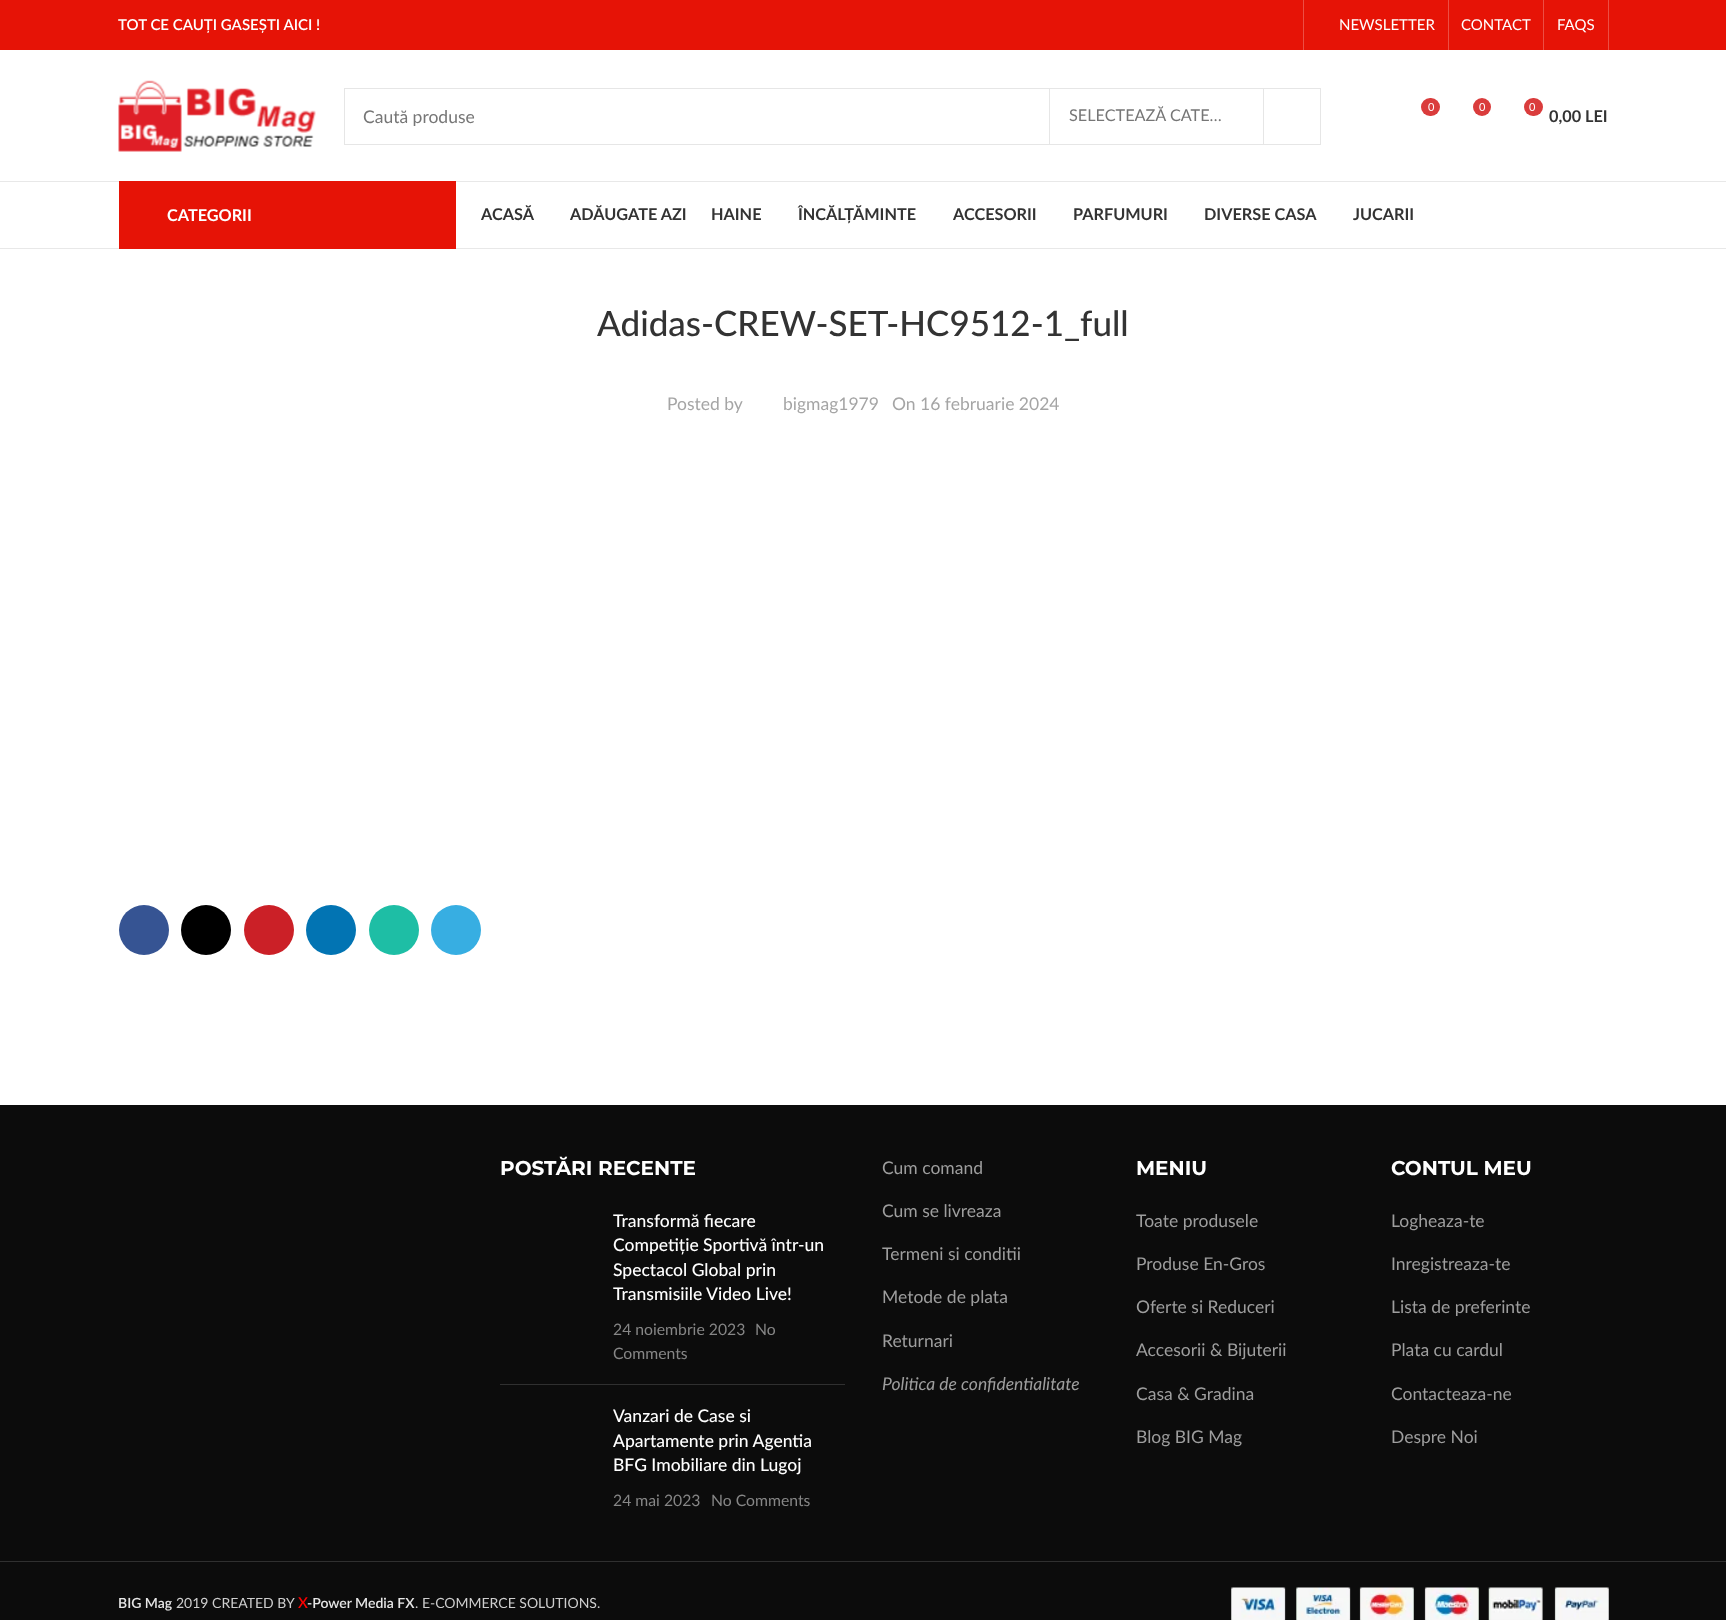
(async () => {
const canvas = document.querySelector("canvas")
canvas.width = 1726
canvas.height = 1620
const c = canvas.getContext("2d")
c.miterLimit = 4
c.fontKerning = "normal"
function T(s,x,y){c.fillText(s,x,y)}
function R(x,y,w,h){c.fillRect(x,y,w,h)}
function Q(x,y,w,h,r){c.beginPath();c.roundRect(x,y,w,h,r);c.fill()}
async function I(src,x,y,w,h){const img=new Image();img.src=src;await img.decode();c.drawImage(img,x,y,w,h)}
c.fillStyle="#fff"
R(0,0,1726,1620)
c.fillStyle="#e61306"
R(0,0,1726,50)
c.font="600 15px Lato"
c.fillStyle="#fff"
T("TOT CE CAUȚI GASEȘTI AICI !",118,30)
c.fillStyle="#ec4e44"
R(1303,0,1,50)
c.font="15px Lato"
c.fillStyle="#fff"
T("NEWSLETTER",1339,30)
c.fillStyle="#ec4e44"
R(1448,0,1,50)
c.fillStyle="#fff"
T("CONTACT",1461,30)
c.fillStyle="#ec4e44"
R(1543,0,1,50)
c.fillStyle="#fff"
T("FAQS",1557,30)
c.fillStyle="#ec4e44"
R(1608,0,1,50)
c.fillStyle="#e8e8e8"
R(0,181,1726,1)
await I("1.png",118,80,198,72)
c.strokeStyle="#e6e6e6"
c.strokeRect(344.5,88.5,976,56)
c.font="17.5px Lato"
c.fillStyle="#767676"
T("Caută produse",363,123)
c.fillStyle="#e6e6e6"
R(1263,89,1,55)
R(1049,89,1,55)
c.font="16.25px Lato"
c.fillStyle="#767676"
T("SELECTEAZĂ CATE…",1069,121)
c.fillStyle="#da3c3c"
Q(1421,98,19,18,9)
c.font="11px Lato"
c.fillStyle="#fff"
T("0",1428,111)
c.fillStyle="#da3c3c"
c.beginPath()
c.arc(1482,107,9,0,7)
c.fill()
c.fillStyle="#fff"
T("0",1479,111)
c.fillStyle="#da3c3c"
Q(1524,98,19,18,9)
c.fillStyle="#fff"
T("0",1529,111)
c.font="bold 16.25px Lato"
c.fillStyle="#333"
T("0,00 LEI",1549,122)
c.fillStyle="#e8e8e8"
R(0,248,1726,1)
c.fillStyle="#e61306"
R(119,181,337,68)
c.fillStyle="#fff"
T("CATEGORII",167,221)
c.fillStyle="#333"
T("ACASĂ",481,220)
T("ADĂUGATE AZI",570,220)
T("HAINE",711,220)
T("ÎNCĂLȚĂMINTE",798,220)
T("ACCESORII",953,220)
T("PARFUMURI",1073,220)
T("DIVERSE CASA",1204,220)
T("JUCARII",1353,220)
c.font="500 35px Lato"
T("Adidas-CREW-SET-HC9512-1_full",597,336)
c.font="17.5px Lato"
c.fillStyle="#a5a5a5"
T("Posted by",667,410)
T("bigmag1979",783,410)
T("On 16 februarie 2024",892,410)
c.fillStyle="#365493"
c.beginPath()
c.arc(144,930,25,0,7)
c.fill()
c.fillStyle="#000"
c.beginPath()
c.arc(206,930,25,0,7)
c.fill()
c.fillStyle="#cb2027"
c.beginPath()
c.arc(269,930,25,0,7)
c.fill()
c.fillStyle="#0274b3"
c.beginPath()
c.arc(331,930,25,0,7)
c.fill()
c.fillStyle="#1ebea5"
c.beginPath()
c.arc(394,930,25,0,7)
c.fill()
c.fillStyle="#37aee2"
c.beginPath()
c.arc(456,930,25,0,7)
c.fill()
c.fillStyle="#0c0c0c"
R(0,1105,1726,515)
c.font="bold 20px Montserrat"
c.fillStyle="#fff"
T("POSTĂRI RECENTE",500,1175)
c.fillStyle="#303030"
R(500,1384,345,1)
c.font="500 17.5px Lato"
c.fillStyle="#fff"
T("Transformă fiecare",613,1227)
T("Competiție Sportivă într-un",613,1251)
T("Spectacol Global prin",613,1276)
T("Transmisiile Video Live!",613,1300)
c.font="15.75px Lato"
c.fillStyle="#868686"
T("24 noiembrie 2023",613,1335)
T("No",755,1335)
T("Comments",613,1359)
c.font="500 17.5px Lato"
c.fillStyle="#fff"
T("Vanzari de Case si",613,1422)
T("Apartamente prin Agentia",613,1447)
T("BFG Imobiliare din Lugoj",613,1471)
c.font="15.75px Lato"
c.fillStyle="#868686"
T("24 mai 2023",613,1506)
T("No Comments",711,1506)
c.font="17.5px Lato"
c.fillStyle="#9e9e9e"
T("Cum comand",882,1174)
T("Cum se livreaza",882,1217)
T("Termeni si conditii",882,1260)
T("Metode de plata",882,1303)
T("Returnari",882,1347)
c.font="italic 17.5px Lato"
T("Politica de confidentialitate",882,1390)
c.font="bold 20px Montserrat"
c.fillStyle="#fff"
T("MENIU",1136,1175)
c.font="17.5px Lato"
c.fillStyle="#9e9e9e"
T("Toate produsele",1136,1227)
T("Produse En-Gros",1136,1270)
T("Oferte si Reduceri",1136,1313)
T("Accesorii & Bijuterii",1136,1356)
T("Casa & Gradina",1136,1400)
T("Blog BIG Mag",1136,1443)
c.font="bold 20px Montserrat"
c.fillStyle="#fff"
T("CONTUL MEU",1391,1175)
c.font="17.5px Lato"
c.fillStyle="#9e9e9e"
T("Logheaza-te",1391,1227)
T("Inregistreaza-te",1391,1270)
T("Lista de preferinte",1391,1313)
T("Plata cu cardul",1391,1356)
T("Contacteaza-ne",1391,1400)
T("Despre Noi",1391,1443)
c.fillStyle="#303030"
R(0,1561,1726,1)
c.font="600 14px Lato"
c.fillStyle="#e7e7e7"
T("BIG Mag",118,1608)
c.font="14px Lato"
c.fillStyle="#cecece"
T("2019 CREATED BY",176,1608)
c.font="600 15px Lato"
c.fillStyle="#f00"
T("X",298,1608)
c.font="600 14px Lato"
c.fillStyle="#e7e7e7"
T("-Power Media FX",307,1608)
c.font="14px Lato"
c.fillStyle="#cecece"
T(". E-COMMERCE SOLUTIONS.",415,1608)
await I("2.png",1231,1587,378,33)
})()
